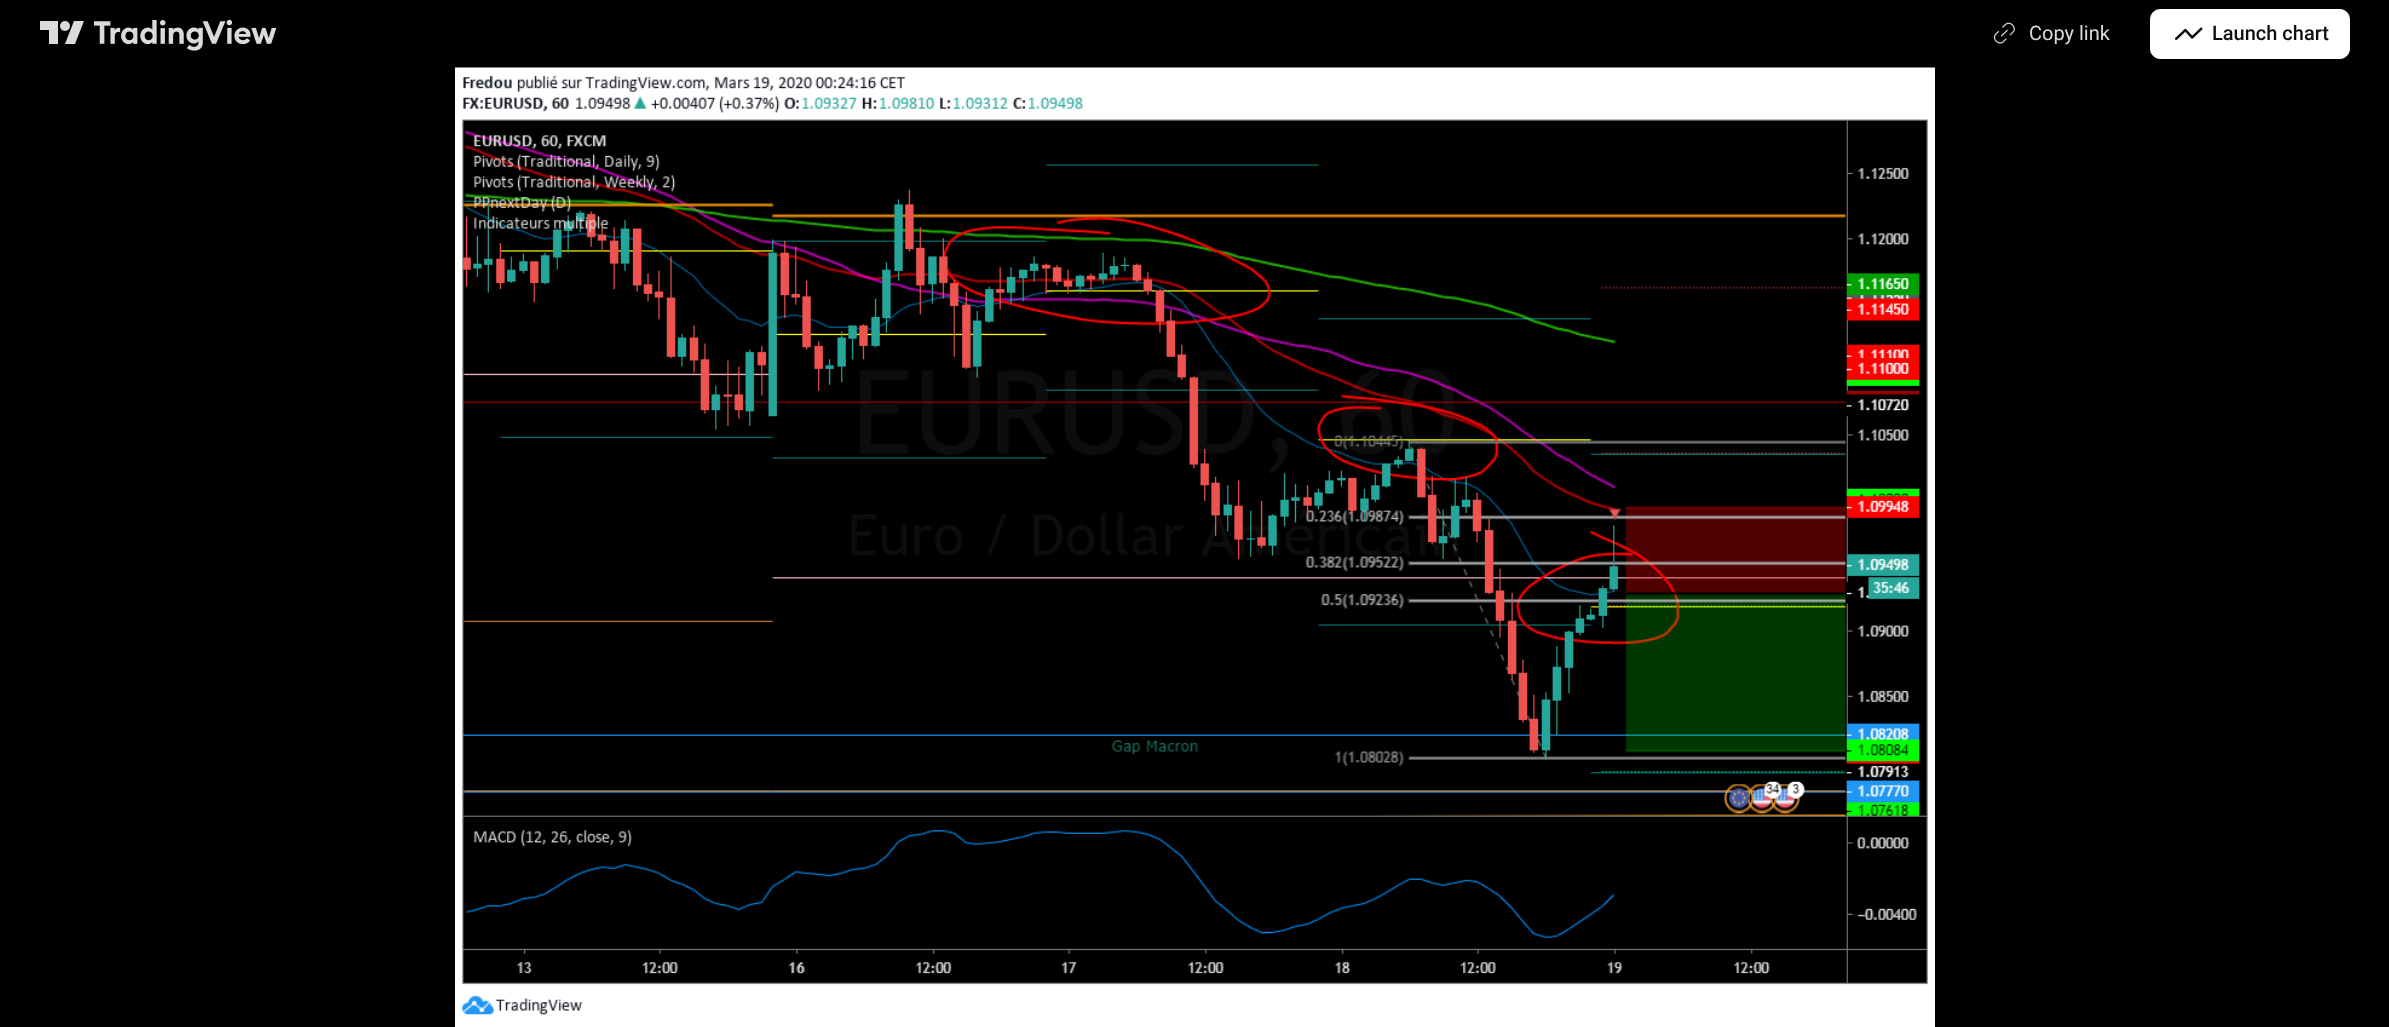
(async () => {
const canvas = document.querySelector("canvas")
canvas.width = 2389
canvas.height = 1027
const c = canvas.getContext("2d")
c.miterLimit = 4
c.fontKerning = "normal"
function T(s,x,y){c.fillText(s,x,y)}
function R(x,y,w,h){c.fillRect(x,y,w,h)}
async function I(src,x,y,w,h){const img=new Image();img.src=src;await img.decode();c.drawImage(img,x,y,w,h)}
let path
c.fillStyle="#000"
R(0,0,2389,1027)
c.fillStyle="#dbdbdb"
path = new Path2D("M58 44h-9v-14h-9v-9h18zm17 0h-10l9-23h10z")
c.fill(path)
c.beginPath()
c.arc(65,26,5,0,7)
c.fill()
await I("1.png",94,19,183,32)
await I("2.png",1993,22,22,22)
c.font="20px Roboto"
T("Copy link",2029,40)
c.fillStyle="#fff"
c.beginPath()
c.roundRect(2150.5,9.5,199,49,9.5)
c.fill()
c.strokeStyle="#fff"
c.stroke()
await I("3.png",2175,27,28,13)
c.font="500 20px Roboto"
c.fillStyle="#0f0f0f"
T("Launch chart",2212,40)
await I("4.png",455,67,1480,960)
})()
